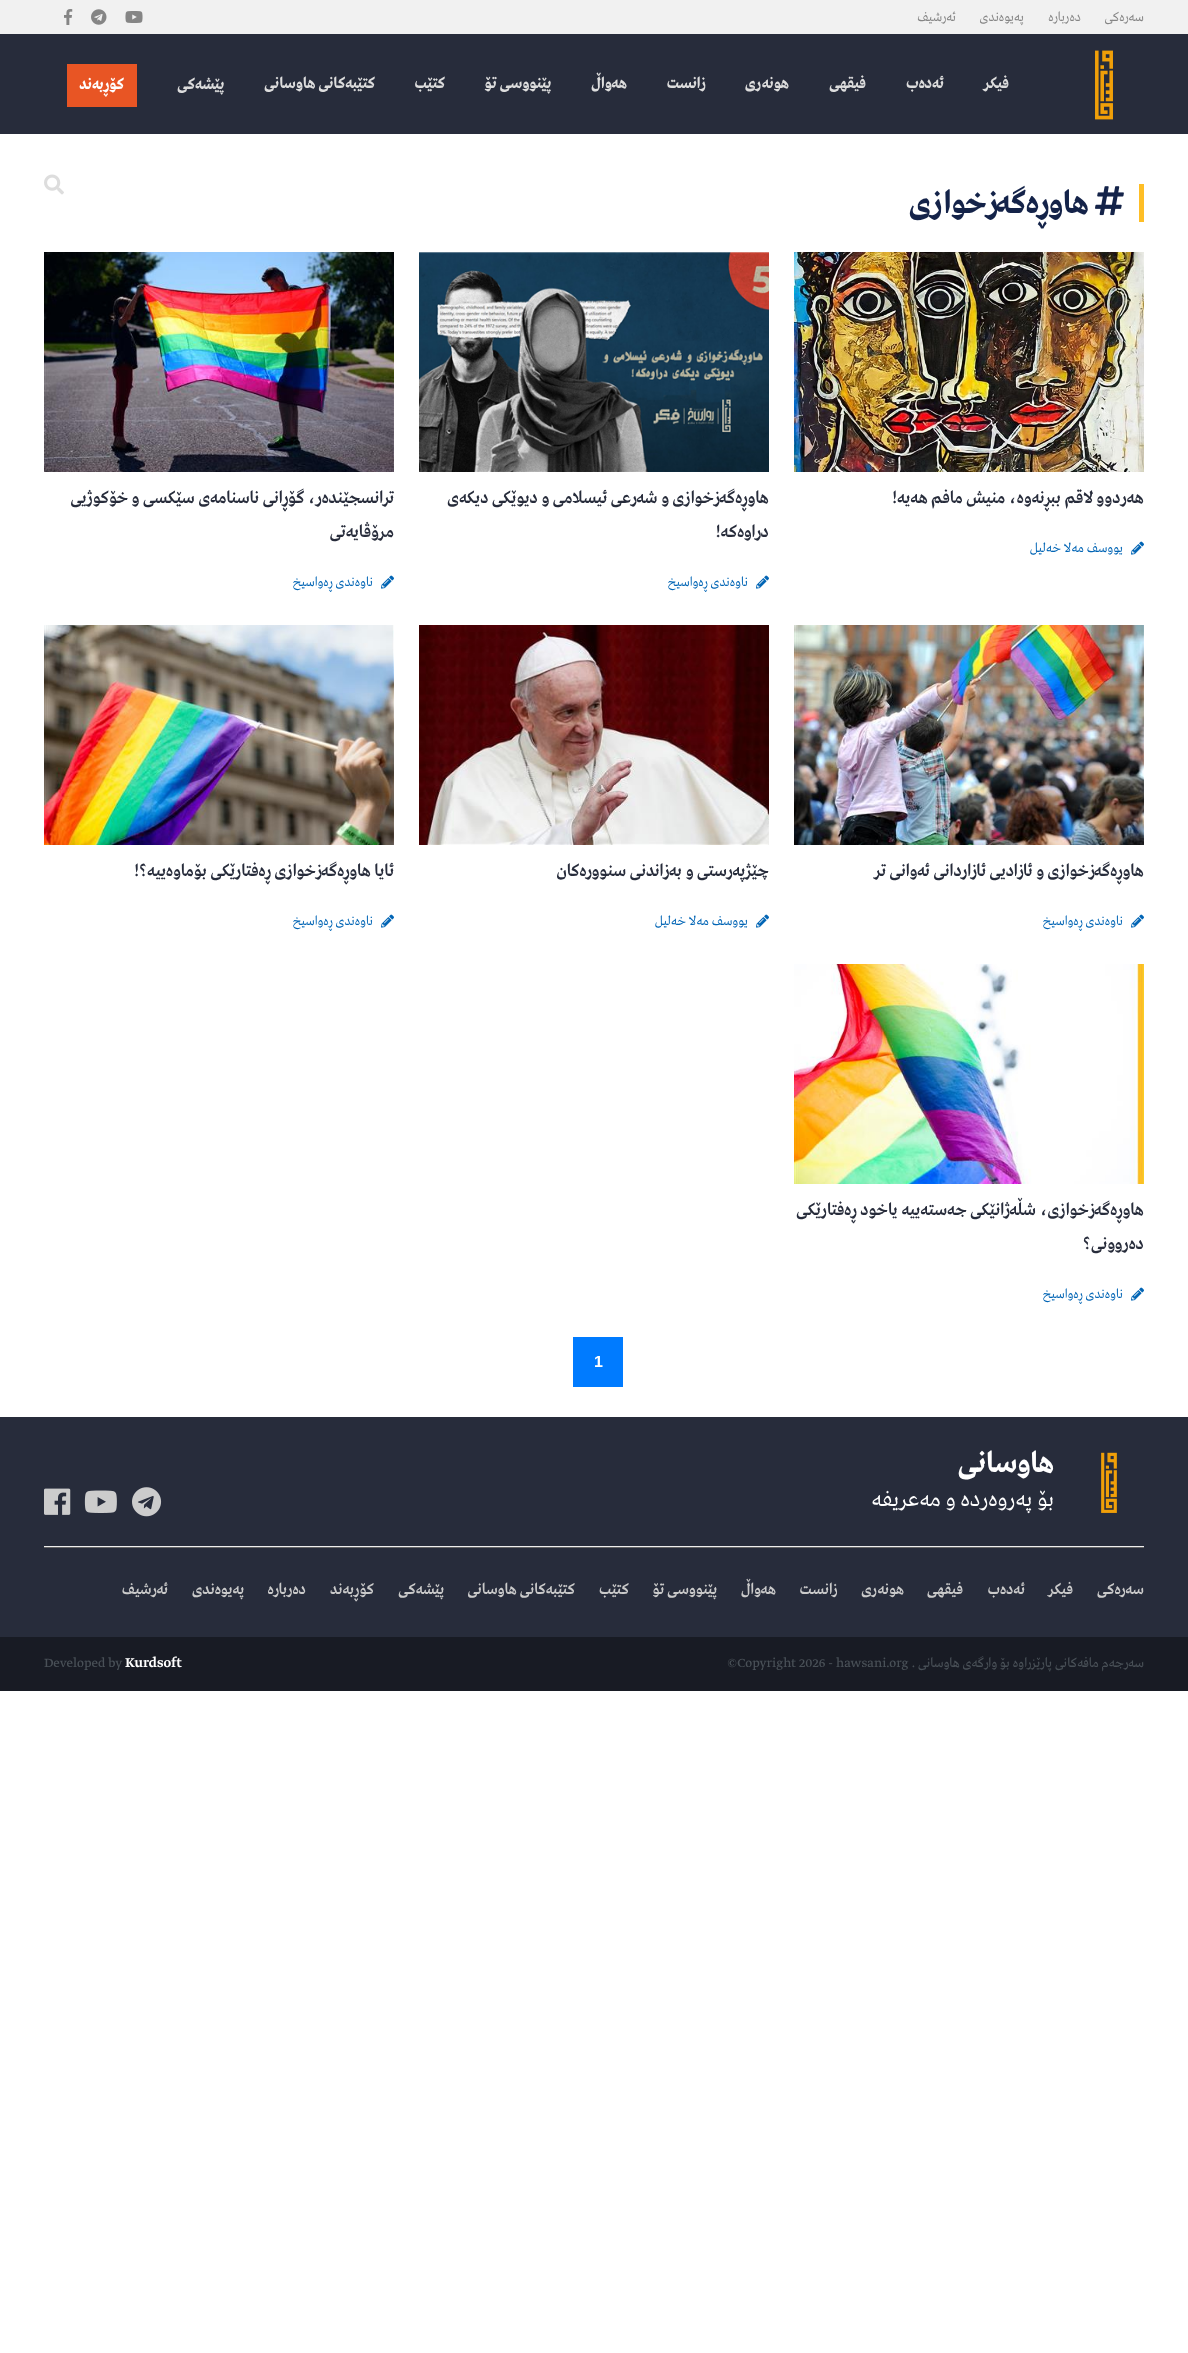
(async () => {
const canvas = document.querySelector("canvas")
canvas.width = 1188
canvas.height = 2353
const c = canvas.getContext("2d")
c.miterLimit = 4
c.fontKerning = "normal"
function T(s,x,y){c.fillText(s,x,y)}
function R(x,y,w,h){c.fillRect(x,y,w,h)}
async function I(src,x,y,w,h){const img=new Image();img.src=src;await img.decode();c.drawImage(img,x,y,w,h)}
c.fillStyle="#fff"
R(0,0,1188,2353)
c.fillStyle="#f1f1f1"
R(0,0,1188,34)
c.direction="rtl"
c.font="300 14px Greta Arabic"
c.fillStyle="#858585"
T("سەرەکی",1144,21)
T("دەربارە",1081,21)
T("پەیوەندی",1024,21)
T("ئەرشیف",956,21)
await I("1.png",125,11,18,12)
await I("2.png",91,9,16,16)
await I("3.png",64,9,9,16)
c.fillStyle="#272c3b"
R(0,34,1188,100)
await I("4.png",1095,50,18,70)
c.font="bold 16px Greta Arabic"
c.fillStyle="#ddd"
T("فیکر",1009,88)
T("ئەدەب",944,88)
T("فیقهی",866,88)
T("‌هونەری",789,88)
T("زانست",705,88)
T("‌هەواڵ",627,88)
T("پێنووسی تۆ",551,88)
T("کتێب",445,88)
T("کتێبەکانی هاوسانی",375,88)
T("پێشەکی",224,89)
c.fillStyle="#e85524"
R(67,64,70,43)
c.fillStyle="#fff"
T("کۆڕبەند",124,89)
await I("5.png",44,174,20,21)
c.fillStyle="#febe26"
R(1139,184,5,38)
await I("6.png",1095,186,29,30)
c.font="bold 33px Greta Arabic"
c.fillStyle="#142349"
T("هاوڕەگەزخوازی",1089,213)
await I("7.png",794,252,350,220)
c.font="500 18px Greta Arabic"
c.fillStyle="#272c3b"
T("هه‌ردوو لاقم ببڕنه‌وه‌، منیش مافم هه‌یه‌!",1144,503)
await I("8.png",1131,541,13,14)
c.font="300 14px Greta Arabic"
c.fillStyle="#0265b5"
T("یووسف مەلا خەلیل",1123,552)
await I("9.png",419,252,350,220)
c.font="500 18px Greta Arabic"
c.fillStyle="#272c3b"
T("هاوڕەگەزخوازی و شەرعی ئیسلامی و دیوێکی دیکەی",769,503)
T("دراوەکە!",769,537)
await I("8.png",756,575,13,14)
c.font="300 14px Greta Arabic"
c.fillStyle="#0265b5"
T("ناوەندی ڕەواسیخ",748,586)
await I("10.png",44,252,350,220)
c.font="500 18px Greta Arabic"
c.fillStyle="#272c3b"
T("ترانسجێندەر، گۆڕانی ناسنامەی سێكسی و خۆكوژیی",394,503)
T("مرۆڤایەتی",394,537)
await I("8.png",381,575,13,14)
c.font="300 14px Greta Arabic"
c.fillStyle="#0265b5"
T("ناوەندی ڕەواسیخ",373,586)
await I("11.png",794,625,350,220)
c.font="500 18px Greta Arabic"
c.fillStyle="#272c3b"
T("هاوڕەگەزخوازی و ئازادیی ئازاردانی ئەوانی تر",1144,876)
await I("8.png",1131,914,13,14)
c.font="300 14px Greta Arabic"
c.fillStyle="#0265b5"
T("ناوەندی ڕەواسیخ",1123,925)
await I("12.png",419,625,350,220)
c.font="500 18px Greta Arabic"
c.fillStyle="#272c3b"
T("چێژپەرستی و بەزاندنی سنوورەکان",769,876)
await I("8.png",756,914,13,14)
c.font="300 14px Greta Arabic"
c.fillStyle="#0265b5"
T("یووسف مەلا خەلیل",748,925)
await I("13.png",44,625,350,220)
c.font="500 18px Greta Arabic"
c.fillStyle="#272c3b"
T("ئایا هاوڕەگەزخوازی ڕەفتارێكی بۆماوەییە؟!",394,876)
await I("8.png",381,914,13,14)
c.font="300 14px Greta Arabic"
c.fillStyle="#0265b5"
T("ناوەندی ڕەواسیخ",373,925)
await I("14.png",794,964,350,220)
c.font="500 18px Greta Arabic"
c.fillStyle="#272c3b"
T("هاوڕەگەزخوازی، شڵەژانێکی جەستەییە یاخود ڕەفتارێکی",1144,1215)
T("دەروونی؟",1144,1249)
await I("8.png",1131,1287,13,14)
c.font="300 14px Greta Arabic"
c.fillStyle="#0265b5"
T("ناوەندی ڕەواسیخ",1123,1298)
c.fillStyle="#007bff"
R(573,1337,50,50)
c.direction="ltr"
c.font="bold 16px Liberation Sans"
c.fillStyle="#fff"
T("1",594,1367)
c.fillStyle="#272c3b"
R(0,1417,1188,220)
await I("15.png",1101,1452,16,61)
c.direction="rtl"
c.font="bold 30px Greta Arabic"
c.fillStyle="#fff"
T("‌هاوسانی",1054,1472)
c.font="300 24px Greta Arabic"
T("بۆ پەروەردە و مەعریفە",1054,1506)
await I("16.png",132,1487,30,30)
await I("17.png",84,1490,33,23)
await I("18.png",44,1488,27,27)
c.fillStyle="#eee"
R(44,1546,1100,1)
c.fillStyle="#666"
R(44,1547,1100,1)
c.font="500 16px Greta Arabic"
c.fillStyle="#cacaca"
T("سەرەکی",1144,1594)
T("فیکر",1073,1594)
T("ئەدەب",1025,1594)
T("فیقهی",963,1594)
T("‌هونەری",904,1594)
T("زانست",837,1594)
T("هەواڵ",776,1594)
T("پێنووسی تۆ",717,1594)
T("کتێب",629,1594)
T("کتێبەکانی هاوسانی",575,1594)
T("پێشەکی",444,1594)
T("کۆڕبەند",374,1594)
T("دەربارە",306,1594)
T("پەیوەندی",244,1594)
T("ئەرشیف",168,1594)
c.fillStyle="#181b24"
R(0,1637,1188,54)
c.font="14px Greta Arabic"
c.fillStyle="#495057"
T("سەرجەم مافەکانی پارێزراوە بۆ وارگەی هاوسانی .",1144,1667)
c.direction="ltr"
T("©Copyright 2026 - hawsani.org",727,1667)
c.font="500 15px Greta Arabic"
c.fillStyle="#fff"
T("Kurdsoft",125,1667)
c.font="14px Greta Arabic"
c.fillStyle="#495057"
T("Developed by",44,1667)
})()
